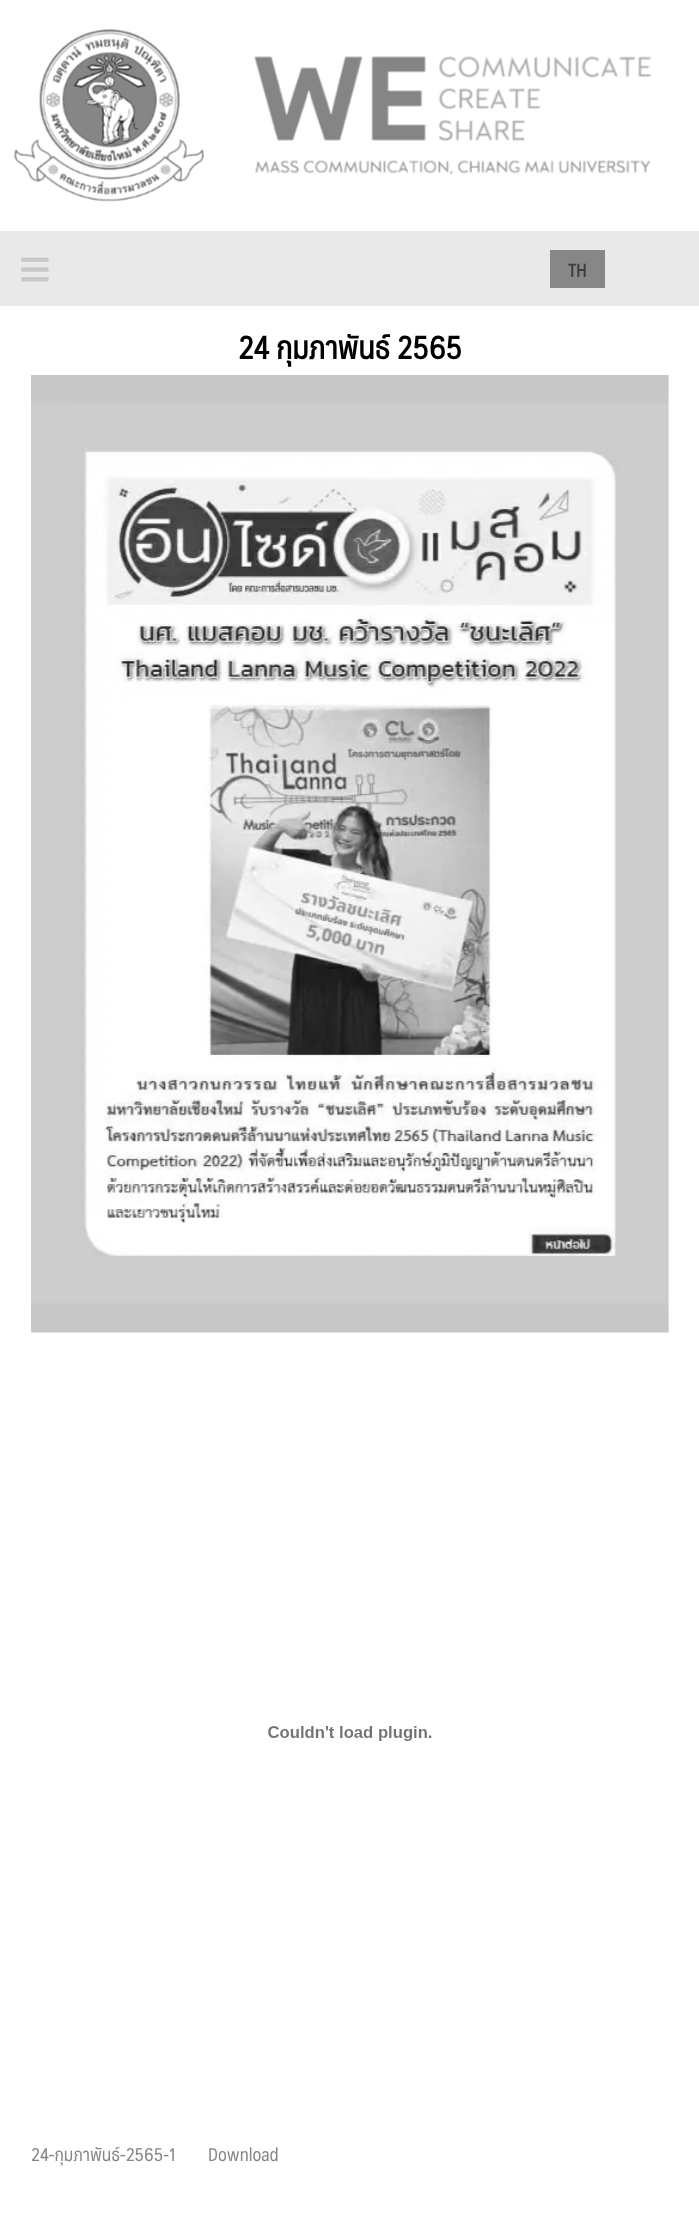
(async () => {
const canvas = document.querySelector("canvas")
canvas.width = 699
canvas.height = 2234
const c = canvas.getContext("2d")
c.miterLimit = 4
c.fontKerning = "normal"
function T(s,x,y){c.fillText(s,x,y)}
function R(x,y,w,h){c.fillRect(x,y,w,h)}
async function I(src,x,y,w,h){const img=new Image();img.src=src;await img.decode();c.drawImage(img,x,y,w,h)}
c.fillStyle="#fff"
R(0,0,699,2234)
await I("1.png",14,29,190,173)
await I("2.png",254,56,398,119)
c.fillStyle="#e9e9e9"
R(0,231,699,75)
await I("3.png",21,257,28,25)
c.fillStyle="#878787"
R(550,250,55,38)
c.font="bold 18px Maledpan"
c.fillStyle="#3d3d3d"
T("TH",568,277)
c.font="bold 31.25px Maledpan"
c.fillStyle="#000"
T("24 กุมภาพันธ์ 2565",238,359)
await I("4.png",31,375,638,958)
await I("5.png",268,1726,164,15)
c.font="18px Maledpan"
c.fillStyle="#858585"
T("24-กุมภาพันธ์-2565-1",31,2161)
T("Download",208,2161)
})()
